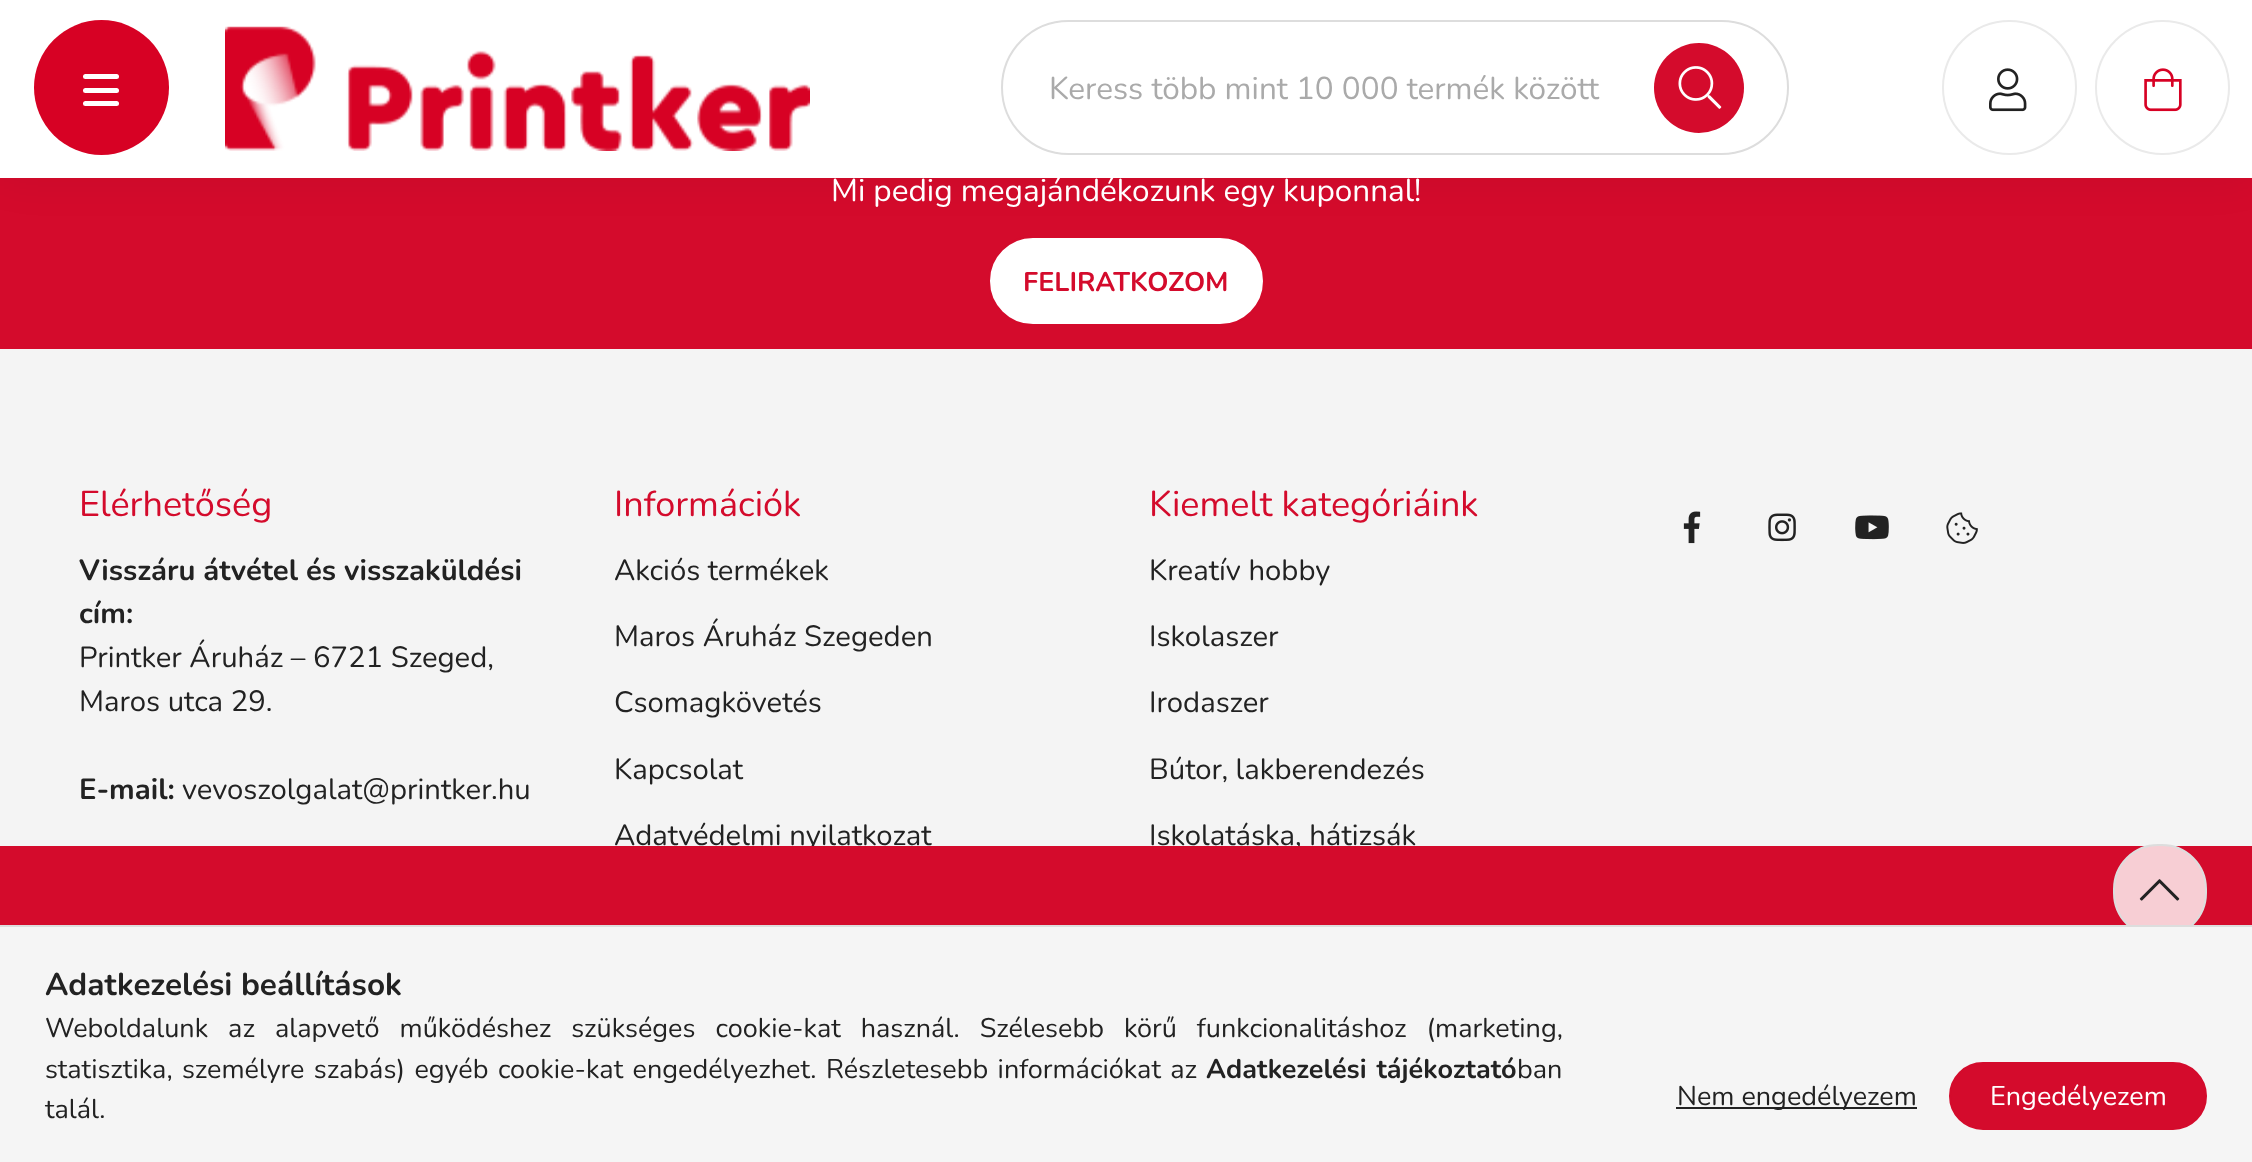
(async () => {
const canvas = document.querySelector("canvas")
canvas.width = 2252
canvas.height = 1162
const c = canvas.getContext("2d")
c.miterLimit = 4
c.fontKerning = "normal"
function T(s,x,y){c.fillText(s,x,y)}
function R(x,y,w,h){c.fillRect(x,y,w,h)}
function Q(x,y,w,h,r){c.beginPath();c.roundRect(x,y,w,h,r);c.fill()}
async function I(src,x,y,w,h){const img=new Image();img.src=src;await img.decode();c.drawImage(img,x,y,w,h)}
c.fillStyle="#d40b2c"
R(0,0,2252,1162)
c.fillStyle="#fff"
c.beginPath()
c.roundRect(989,237,275,88,44)
c.fill()
c.strokeStyle="#d40b2c"
c.lineWidth=2
c.stroke()
c.fillStyle="#0000000d"
c.filter="blur(22.5px)"
c.beginPath()
c.rect(0,-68,2252,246)
c.fill()
c.filter="none"
c.fillStyle="#fff"
R(0,0,2252,178)
c.fillStyle="#d70124"
c.beginPath()
c.arc(101.5,87.5,67.5,0,7)
c.fill()
c.fillStyle="#fff"
Q(83,74,36,5,2.5)
Q(83,88,36,5,2.5)
Q(83,101,36,5,2.5)
await I("1.png",225,26,585,125)
c.beginPath()
c.roundRect(1002,21,786,133,66.5)
c.strokeStyle="#ddd"
c.stroke()
c.font="31.5px Nunito"
c.fillStyle="#aaa"
T("Keress több mint 10 000 termék között",1049,99)
c.fillStyle="#d40b2c"
c.beginPath()
c.arc(1699,88,45,0,7)
c.fill()
await I("2.png",1678,66,44,43)
c.beginPath()
c.arc(2009.5,87.5,66.5,0,7)
c.strokeStyle="#eaeaea"
c.stroke()
await I("3.png",1989,68,38,44)
c.beginPath()
c.arc(2162.5,87.5,66.5,0,7)
c.stroke()
await I("4.png",2144,68,38,44)
c.fillStyle="#fff"
T("Mi pedig megajándékozunk egy kuponnal!",831,201)
c.font="bold 27px Nunito"
c.fillStyle="#d40b2c"
T("FELIRATKOZOM",1023,291)
c.fillStyle="#f4f4f4"
R(0,349,2252,497)
c.font="29.25px Nunito"
c.fillStyle="#222"
T("Adatvédelmi nyilatkozat",614,845)
T("Iskolatáska, hátizsák",1149,845)
c.fillStyle="#d40b2c"
R(809,846,491,5)
c.font="36px Nunito"
T("Elérhetőség",79,516)
c.font="bold 29.25px Nunito"
c.fillStyle="#222"
T("Visszáru átvétel és visszaküldési",79,580)
T("cím:",79,623)
c.font="29.25px Nunito"
T("Printker Áruház – 6721 Szeged,",79,667)
T("Maros utca 29.",79,711)
c.font="bold 29.25px Nunito"
T("E-mail:",79,799)
c.font="29.25px Nunito"
T("vevoszolgalat@printker.hu",182,799)
c.font="36px Nunito"
c.fillStyle="#d40b2c"
T("Információk",614,516)
c.font="29.25px Nunito"
c.fillStyle="#222"
T("Akciós termékek",614,580)
T("Maros Áruház Szegeden",614,646)
T("Csomagkövetés",614,712)
T("Kapcsolat",614,779)
c.font="36px Nunito"
c.fillStyle="#d40b2c"
T("Kiemelt kategóriáink",1149,516)
c.font="29.25px Nunito"
c.fillStyle="#222"
T("Kreatív hobby",1149,580)
T("Iskolaszer",1149,646)
T("Irodaszer",1149,712)
T("Bútor, lakberendezés",1149,779)
await I("5.png",1683,511,18,33)
await I("6.png",1768,513,28,29)
await I("7.png",1855,515,34,25)
await I("8.png",1946,512,32,32)
c.fillStyle="#ffffffcc"
c.beginPath()
c.roundRect(2114,845,92,92,44)
c.fill()
c.strokeStyle="#ddd"
c.stroke()
await I("9.png",2139,879,41,22)
c.fillStyle="#f5f5f5"
R(0,927,2252,235)
c.fillStyle="#ddd"
R(0,925,2252,2)
c.font="bold 31.5px Nunito"
c.fillStyle="#222"
T("Adatkezelési beállítások",45,995)
c.wordSpacing="13px"
c.font="27px Nunito"
T("Weboldalunk az alapvető működéshez szükséges cookie-kat használ. Szélesebb körű funkcionalitáshoz (marketing,",45,1037)
c.wordSpacing="2.5px"
T("statisztika, személyre szabás) egyéb cookie-kat engedélyezhet. Részletesebb információkat az",45,1078)
c.font="bold 27px Nunito"
T("Adatkezelési tájékoztató",1206,1078)
c.wordSpacing="0px"
c.font="27px Nunito"
T("ban",1517,1078)
T("talál.",45,1118)
R(1676,1107,241,2)
T("Nem engedélyezem",1677,1105)
c.fillStyle="#d40b2c"
c.beginPath()
c.roundRect(1950,1063,256,66,33)
c.fill()
c.strokeStyle="#d40b2c"
c.stroke()
c.fillStyle="#fff"
T("Engedélyezem",1990,1105)
})()
